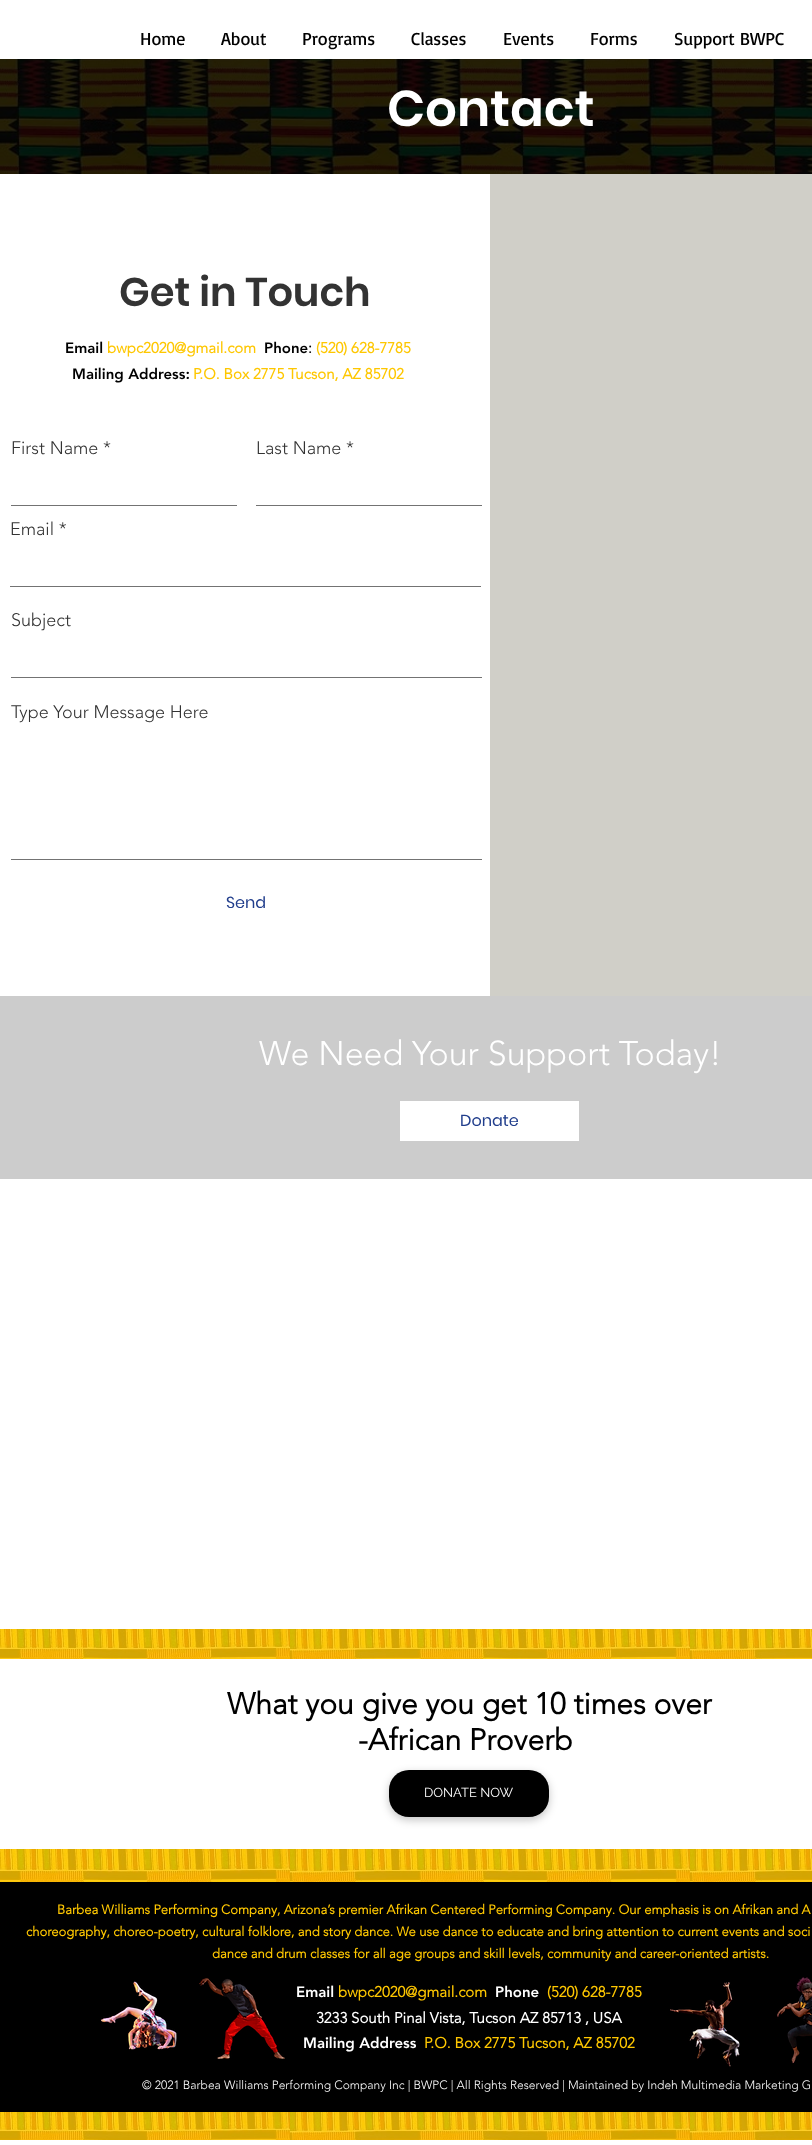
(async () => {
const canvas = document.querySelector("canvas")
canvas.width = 812
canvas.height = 2145
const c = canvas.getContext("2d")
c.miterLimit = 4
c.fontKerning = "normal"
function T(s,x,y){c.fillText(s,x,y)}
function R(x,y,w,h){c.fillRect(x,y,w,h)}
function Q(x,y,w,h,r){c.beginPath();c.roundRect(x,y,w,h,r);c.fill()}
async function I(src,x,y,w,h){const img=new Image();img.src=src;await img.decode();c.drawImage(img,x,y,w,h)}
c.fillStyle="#fff"
R(0,0,812,2145)
c.font="18px Basic"
c.fillStyle="#000"
T("Home",140,45)
T("About",221,45)
T("Programs",302,45)
T("Classes",411,45)
T("Events",503,45)
T("Forms",590,45)
T("Support BWPC",674,45)
R(0,59,812,115)
await I("1.png",0,59,812,115)
c.font="600 50px Poppins"
c.fillStyle="#fff"
T("Contact",387,126)
c.font="600 40px Poppins"
c.fillStyle="#333"
T("Get in Touch",119,306)
c.font="900 15px 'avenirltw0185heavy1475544'"
c.fillStyle="#000"
T("Email",65,353)
c.font="bold 15px 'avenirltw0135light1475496'"
c.fillStyle="#fec700"
T("bwpc2020@gmail.com",107,353)
c.font="900 15px 'avenirltw0185heavy1475544'"
c.fillStyle="#000"
T("Phone",264,353)
c.font="bold 15px 'avenirltw0135light1475496'"
T(":",308,353)
c.fillStyle="#fec700"
T("(520) 628-7785",316,353)
c.font="900 15px 'avenirltw0185heavy1475544'"
c.fillStyle="#000"
T("Mailing Address:",72,379)
c.font="bold 15px 'avenirltw0135light1475496'"
c.fillStyle="#fec700"
T("P.O. Box 2775 Tucson, AZ 85702",193,379)
c.font="300 18px 'avenirltw0135light1475496'"
c.fillStyle="#333"
T("First Name *",11,454)
c.fillStyle="#737373"
R(11,505,226,1)
c.fillStyle="#333"
T("Last Name *",256,454)
c.fillStyle="#737373"
R(256,505,226,1)
c.fillStyle="#333"
T("Email *",10,535)
c.fillStyle="#737373"
R(10,586,471,1)
c.fillStyle="#333"
T("Subject",11,626)
c.fillStyle="#737373"
R(11,677,471,1)
c.fillStyle="#333"
T("Type Your Message Here",11,718)
c.fillStyle="#737373"
R(11,859,471,1)
c.font="16px Poppins"
c.fillStyle="#213e8c"
T("Send",226,908)
c.fillStyle="#d0cfc8"
R(490,174,322,822)
c.fillStyle="#ccc"
R(0,996,812,183)
c.font="300 34px 'avenirltw0135light1475496'"
c.fillStyle="#fff"
T("We Need Your Support Today!",259,1065)
R(400,1101,179,40)
c.font="16px Poppins"
c.fillStyle="#213e8c"
T("Donate",460,1126)
c.fillStyle="#fec700"
R(0,1629,812,30)
await I("2.png",0,1629,812,30)
c.font="bold 30px 'avenirltw0135light1475496'"
c.fillStyle="#000"
T("What you give you get 10 times over",227,1714)
T("-African Proverb",358,1750)
c.fillStyle="#0000003b"
c.filter="blur(4.5px)"
c.beginPath()
c.roundRect(389,1773,160,47,20)
c.fill()
c.filter="none"
c.fillStyle="#000"
Q(389,1770,160,47,20)
c.font="13px Raleway"
c.fillStyle="#fff"
T("DONATE NOW",424,1797)
c.fillStyle="#fec700"
R(0,1849,812,33)
await I("3.png",0,1849,812,33)
c.fillStyle="#000"
R(0,1882,812,230)
c.font="bold 13px 'avenirltw0135light1475496'"
c.fillStyle="#fec700"
T("Barbea Williams Performing Company, Arizona’s premier Afrikan Centered Performing Company. Our emphasis is on Afrikan and A",57,1914)
T("choreography, choreo-poetry, cultural folklore, and story dance. We use dance to educate and bring attention to current events and soci",26,1936)
T("dance and drum classes for all age groups and skill levels, community and career-oriented artists.",212,1958)
await I("4.png",100,1981,77,69)
await I("5.png",199,1978,86,81)
c.font="900 15px 'avenirltw0185heavy1475544'"
c.fillStyle="#fff"
T("Email",296,1997)
c.font="bold 15px 'avenirltw0135light1475496'"
c.fillStyle="#fec700"
T("bwpc2020@gmail.com",338,1997)
c.font="900 15px 'avenirltw0185heavy1475544'"
c.fillStyle="#fff"
T("Phone",495,1997)
c.font="bold 15px 'avenirltw0135light1475496'"
c.fillStyle="#fec700"
T("(520) 628-7785",547,1997)
c.fillStyle="#fff"
T("3233 South Pinal Vista, Tucson AZ 85713 , USA",316,2023)
c.font="900 15px 'avenirltw0185heavy1475544'"
T("Mailing Address",303,2048)
c.font="bold 15px 'avenirltw0135light1475496'"
c.fillStyle="#fec700"
T("P.O. Box 2775 Tucson, AZ 85702",424,2048)
await I("6.png",670,1982,70,85)
await I("7.png",777,1977,35,87)
c.font="300 12px 'avenirltw0135light1475496'"
c.fillStyle="#fff"
T("© 2021 Barbea Williams Performing Company Inc | BWPC | All Rights Reserved | Maintained by Indeh Multimedia Marketing G",142,2089)
c.fillStyle="#fec700"
R(0,2112,812,28)
await I("8.png",0,2112,812,28)
})()
